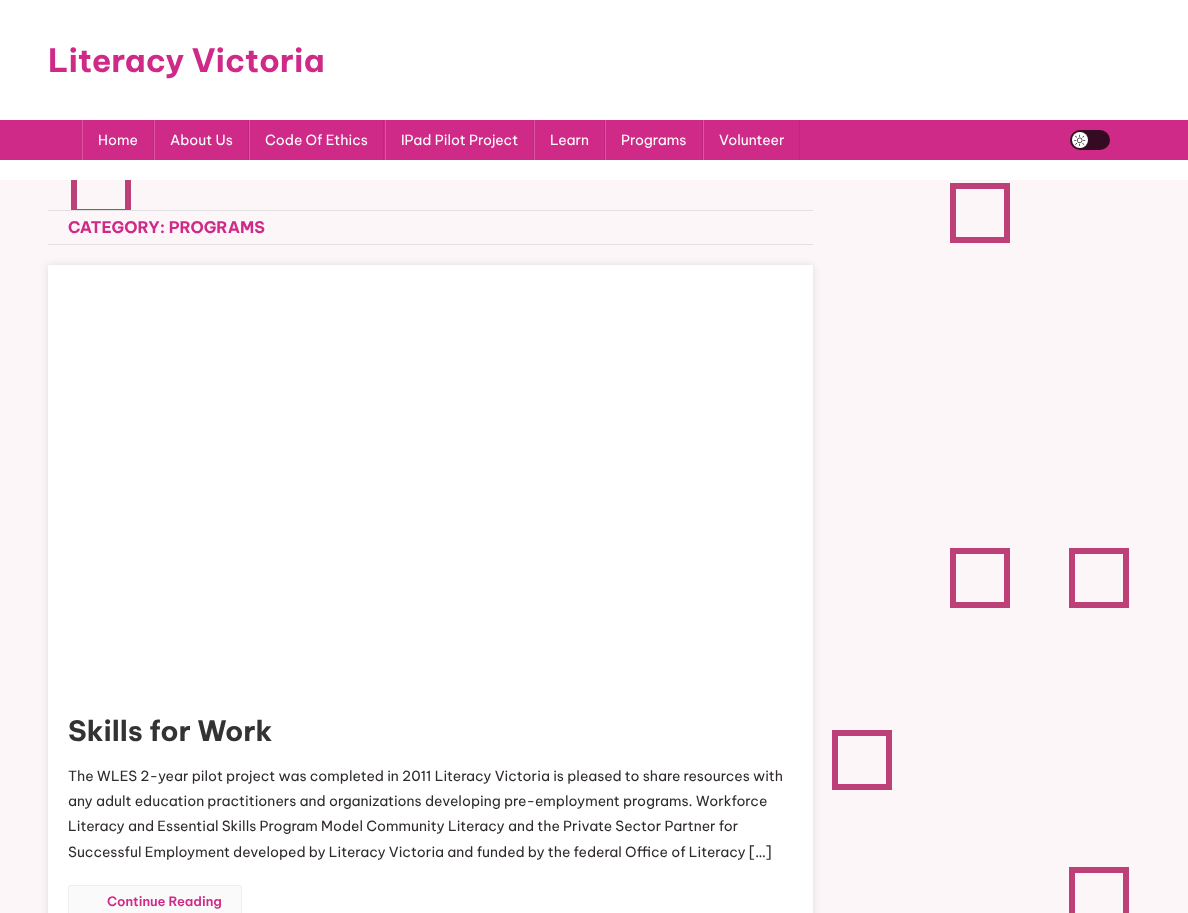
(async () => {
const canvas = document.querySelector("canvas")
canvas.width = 1188
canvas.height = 913
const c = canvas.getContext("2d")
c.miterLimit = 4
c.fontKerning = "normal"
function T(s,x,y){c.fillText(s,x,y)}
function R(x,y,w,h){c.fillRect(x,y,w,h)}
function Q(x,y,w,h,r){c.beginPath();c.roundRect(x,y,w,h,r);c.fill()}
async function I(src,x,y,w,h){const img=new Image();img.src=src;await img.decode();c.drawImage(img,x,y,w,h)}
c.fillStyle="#fdf6f9"
R(0,0,1188,913)
c.strokeStyle="#bd4177"
c.lineWidth=6
c.strokeRect(74,158,54,54)
c.fillStyle="#fff"
R(0,0,1188,180)
c.font="bold 32px Be Vietnam Pro"
c.fillStyle="#cf2a88"
T("Literacy Victoria",48,72)
R(0,120,1188,40)
c.fillStyle="#be277d"
R(153,120,1,40)
c.fillStyle="#d955a0"
R(82,120,1,40)
c.font="14px Be Vietnam Pro"
c.fillStyle="#fff"
T("Home",98,145)
c.fillStyle="#be277d"
R(248,120,1,40)
c.fillStyle="#d955a0"
R(154,120,1,40)
c.fillStyle="#fff"
T("About Us",170,145)
c.fillStyle="#be277d"
R(383,120,1,40)
c.fillStyle="#d955a0"
R(249,120,1,40)
c.fillStyle="#fff"
T("Code Of Ethics",265,145)
c.fillStyle="#be277d"
R(533,120,1,40)
c.fillStyle="#d955a0"
R(385,120,1,40)
c.fillStyle="#fff"
T("IPad Pilot Project",401,145)
c.fillStyle="#be277d"
R(604,120,1,40)
c.fillStyle="#d955a0"
R(534,120,1,40)
c.fillStyle="#fff"
T("Learn",550,145)
c.fillStyle="#be277d"
R(702,120,1,40)
c.fillStyle="#d955a0"
R(605,120,1,40)
c.fillStyle="#fff"
T("Programs",621,145)
c.fillStyle="#be277d"
R(799,120,1,40)
c.fillStyle="#d955a0"
R(703,120,1,40)
c.fillStyle="#fff"
T("Volunteer",719,145)
c.fillStyle="#340b22"
Q(1070,130,40,20,10)
c.fillStyle="#fff"
c.beginPath()
c.arc(1080,140,8,0,7)
c.fill()
await I("1.png",1074,134,12,12)
c.fillStyle="#fdf6f9"
R(71,211,60,4)
c.fillStyle="#e1e1e1"
R(48,210,765,1)
R(48,244,765,1)
c.font="bold 16px Be Vietnam Pro"
c.fillStyle="#cf2a88"
T("CATEGORY: PROGRAMS",68,233)
c.fillStyle="#0000001a"
c.filter="blur(4px)"
c.beginPath()
c.rect(48,265,765,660)
c.fill()
c.filter="none"
c.fillStyle="#fff"
R(48,265,765,648)
c.font="bold 28px Be Vietnam Pro"
c.fillStyle="#333"
T("Skills for Work",68,741)
c.font="14px Be Vietnam Pro"
c.fillStyle="#302b2b"
T("The WLES 2-year pilot project was completed in 2011 Literacy Victoria is pleased to share resources with",68,781)
T("any adult education practitioners and organizations developing pre-employment programs. Workforce",68,806)
T("Literacy and Essential Skills Program Model Community Literacy and the Private Sector Partner for",68,831)
T("Successful Employment developed by Literacy Victoria and funded by the federal Office of Literacy […]",68,857)
c.fillStyle="#fafafa"
c.beginPath()
c.roundRect(68.5,885.5,173,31,2.5)
c.fill()
c.strokeStyle="#eee"
c.lineWidth=1
c.stroke()
c.font="600 13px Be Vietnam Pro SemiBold"
c.fillStyle="#cf2a88"
T("Continue Reading",107,906)
c.strokeStyle="#bd4177"
c.lineWidth=6
c.strokeRect(953,186,54,54)
c.strokeRect(953,551,54,54)
c.strokeRect(1072,551,54,54)
c.strokeRect(835,733,54,54)
c.strokeRect(1072,870,54,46)
})()
